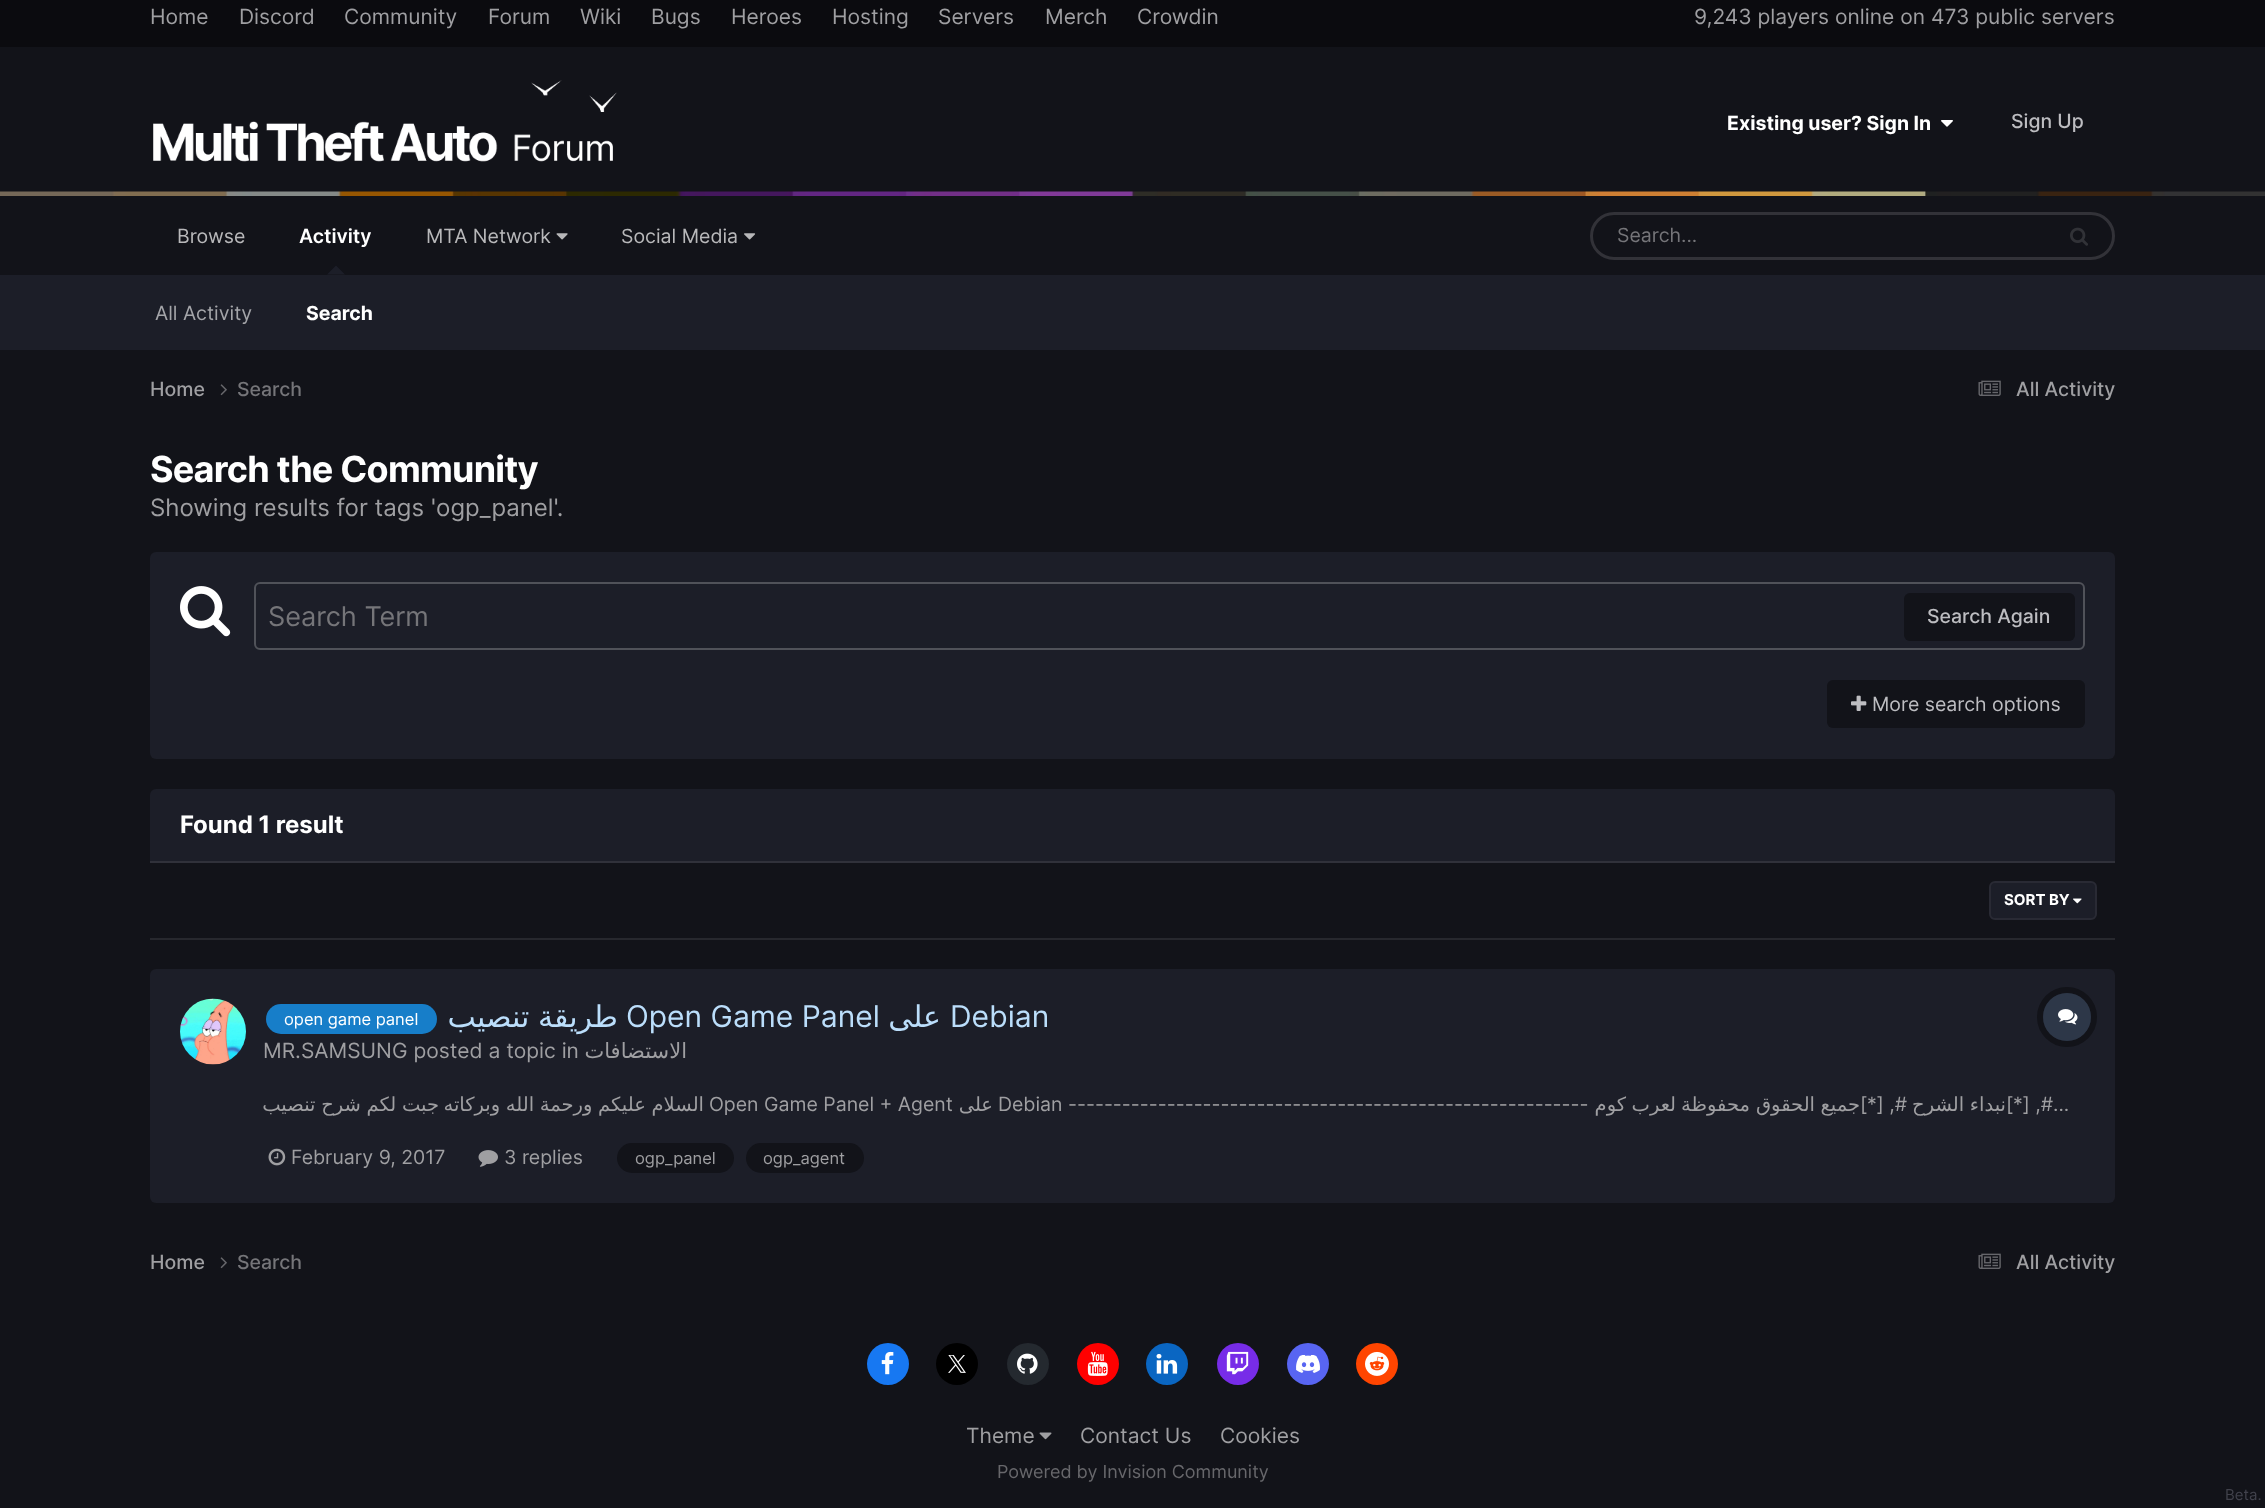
(async () => {
const canvas = document.querySelector("canvas")
canvas.width = 2265
canvas.height = 1508
const c = canvas.getContext("2d")
c.miterLimit = 4
c.fontKerning = "normal"
function T(s,x,y){c.fillText(s,x,y)}
function R(x,y,w,h){c.fillRect(x,y,w,h)}
function Q(x,y,w,h,r){c.beginPath();c.roundRect(x,y,w,h,r);c.fill()}
async function I(src,x,y,w,h){const img=new Image();img.src=src;await img.decode();c.drawImage(img,x,y,w,h)}
let path
c.fillStyle="#121319"
R(0,0,2265,1508)
await I("1.png",0,191,2265,5)
c.fillStyle="#0b0b0f"
R(0,0,2265,47)
c.font="21px Inter"
c.fillStyle="#9f9fa2"
T("Home",150,24)
T("Discord",239,24)
T("Community",344,24)
T("Forum",488,24)
T("Wiki",580,24)
T("Bugs",651,24)
T("Heroes",731,24)
T("Hosting",832,24)
T("Servers",938,24)
T("Merch",1045,24)
T("Crowdin",1137,24)
T("9,243 players online on 473 public servers",1694,24)
await I("2.png",153,80,464,82)
c.font="bold 19.5px Inter"
c.fillStyle="#fff"
T("Existing user? Sign In",1727,130)
await I("3.png",1941,120,12,7)
c.font="500 19.5px Inter"
c.fillStyle="#bdbdc1"
T("Sign Up",2011,128)
c.font="600 19.5px Inter"
c.fillStyle="#fff"
T("Activity",299,243)
c.fillStyle="#1c1e28"
path = new Path2D("M345 274.5h-18l9-9z")
c.fill(path)
R(0,275,2265,75)
c.font="19.5px Inter"
c.fillStyle="#a4a5a9"
T("All Activity",155,320)
c.font="bold 19.5px Inter"
c.fillStyle="#fff"
T("Search",306,320)
c.font="19.5px Inter"
c.fillStyle="#b8b8ba"
T("Browse",177,243)
T("MTA Network",426,243)
await I("4.png",556,233,12,7)
T("Social Media",621,243)
await I("5.png",744,233,12,7)
c.beginPath()
c.roundRect(1591.5,213.5,522,45,22.5)
c.strokeStyle="#323238"
c.lineWidth=3
c.stroke()
c.fillStyle="#757579"
T("Search...",1617,242)
await I("6.png",2070,227,18,19)
c.font="500 19.5px Inter"
c.fillStyle="#9f9fa2"
T("Home",150,396)
await I("7.png",220,384,7,12)
c.fillStyle="#757579"
T("Search",237,396)
await I("8.png",1978,380,23,16)
c.fillStyle="#9f9fa2"
T("All Activity",2016,396)
c.letterSpacing="-0.75px"
c.font="bold 36px Inter"
c.fillStyle="#fff"
T("Search the Community",150,482)
c.letterSpacing="0px"
c.font="24px Inter"
c.fillStyle="#9f9fa2"
T("Showing results for tags 'ogp_panel'.",150,516)
c.fillStyle="#1c1e28"
Q(150,552,1965,207,6)
await I("9.png",180,586,51,51)
c.beginPath()
c.roundRect(255,583,1829,66,5)
c.strokeStyle="#505259"
c.lineWidth=2
c.stroke()
c.font="27px Inter"
c.fillStyle="#757579"
T("Search Term",268,626)
c.fillStyle="#121319"
Q(1904,593,171,48,6)
c.font="500 19.5px Inter"
c.fillStyle="#bdbdc1"
T("Search Again",1927,623)
c.fillStyle="#121319"
Q(1827,680,258,48,6)
await I("10.png",1851,695,16,16)
c.font="19.5px Inter"
c.fillStyle="#bdbdc1"
T("More search options",1872,711)
c.fillStyle="#1c1e28"
c.beginPath()
c.roundRect(150,789,1965,74,[6,6,0,0])
c.fill()
c.fillStyle="#30313a"
R(150,861,1965,2)
c.font="bold 24px Inter"
c.fillStyle="#fff"
T("Found 1 result",180,833)
c.fillStyle="#27282e"
R(150,938,1965,2)
c.fillStyle="#1c1e28"
Q(1989,881,108,39,6)
await I("11.png",2073,898,9,6)
c.beginPath()
c.roundRect(1990,882,106,37,5)
c.strokeStyle="#9f9fa21a"
c.stroke()
c.font="bold 15px Inter"
c.fillStyle="#fff"
T("SORT BY",2004,905)
c.fillStyle="#1c1e28"
Q(150,969,1965,234,6)
await I("12.png",180,998,66,67)
c.fillStyle="#177ec9"
Q(266,1004,171,30,15)
c.font="16.5px Inter"
c.fillStyle="#fff"
T("open game panel",284,1025)
c.wordSpacing="-1px"
c.direction="rtl"
c.font="30px DejaVu Sans"
c.fillStyle="#bbdefb"
T("طريقة تنصيب",618,1027)
c.wordSpacing="0px"
c.direction="ltr"
c.font="30px Inter"
T("Open Game Panel",626,1027)
c.direction="rtl"
c.font="30px DejaVu Sans"
T("على",941,1027)
c.direction="ltr"
c.font="30px Inter"
T("Debian",950,1027)
c.font="21px Inter"
c.fillStyle="#9f9fa2"
T("MR.SAMSUNG posted a topic in",263,1058)
c.direction="rtl"
c.font="21px DejaVu Sans"
T("الاستضافات",687,1058)
c.beginPath()
c.arc(2067,1017,27,0,7)
c.strokeStyle="#121319"
c.lineWidth=6
c.stroke()
c.fillStyle="#2d3748"
c.beginPath()
c.arc(2067,1017,24,0,7)
c.fill()
await I("13.png",2058,1009,20,16)
c.wordSpacing="-0.5px"
c.font="19.5px DejaVu Sans"
c.fillStyle="#9f9fa2"
T("جبت لكم شرح تنصيب",439,1111)
T("السلام عليكم ورحمة الله وبركاته",704,1111)
c.wordSpacing="0px"
c.direction="ltr"
c.font="19.5px Inter"
T("Open Game Panel + Agent",709,1111)
c.direction="rtl"
c.font="19.5px DejaVu Sans"
T("على",993,1111)
c.direction="ltr"
c.font="19.5px Inter"
T("Debian ----------------------------------------------------------",998,1111)
c.direction="rtl"
c.font="19.5px DejaVu Sans"
T("كوم",1626,1111)
T("لعرب",1676,1111)
T("محفوظة",1750,1111)
T("الحقوق",1815,1111)
T("جميع",1860,1111)
c.font="19.5px Inter"
T("#, [*]",1907,1111)
c.wordSpacing="-0.5px"
c.font="19.5px DejaVu Sans"
T("نبداء الشرح",2006,1111)
c.wordSpacing="0px"
c.direction="ltr"
c.font="19.5px Inter"
T("[*] ,#...",2006,1111)
await I("14.png",268,1148,18,18)
T("February 9, 2017",291,1164)
await I("15.png",478,1150,20,17)
T("3 replies",504,1164)
c.fillStyle="#121319"
Q(617,1143,117,30,15)
c.font="16.5px Inter"
c.fillStyle="#9f9fa2"
T("ogp_panel",635,1164)
c.fillStyle="#121319"
Q(746,1143,118,30,15)
c.fillStyle="#9f9fa2"
T("ogp_agent",763,1164)
c.font="500 19.5px Inter"
T("Home",150,1269)
await I("7.png",220,1257,7,12)
c.fillStyle="#757579"
T("Search",237,1269)
await I("8.png",1978,1253,23,16)
c.fillStyle="#9f9fa2"
T("All Activity",2016,1269)
c.fillStyle="#1778f2"
c.beginPath()
c.arc(888,1364,21,0,7)
c.fill()
await I("16.png",881,1351,13,24)
c.fillStyle="#000"
c.beginPath()
c.arc(957,1364,21,0,7)
c.fill()
await I("17.png",948,1355,18,18)
c.fillStyle="#24292f"
c.beginPath()
c.arc(1028,1364,21,0,7)
c.fill()
await I("18.png",1017,1353,21,21)
c.fillStyle="#f00"
c.beginPath()
c.arc(1098,1364,21,0,7)
c.fill()
await I("19.png",1087,1351,21,25)
c.fillStyle="#0a66c2"
c.beginPath()
c.arc(1167,1364,21,0,7)
c.fill()
await I("20.png",1156,1353,22,21)
c.fillStyle="#772ce8"
c.beginPath()
c.arc(1238,1364,21,0,7)
c.fill()
await I("21.png",1226,1351,23,24)
c.fillStyle="#5865f2"
c.beginPath()
c.arc(1308,1364,21,0,7)
c.fill()
await I("22.png",1296,1355,24,18)
c.fillStyle="#ff4500"
c.beginPath()
c.arc(1377,1364,21,0,7)
c.fill()
await I("23.png",1365,1351,24,25)
c.font="21px Inter"
c.fillStyle="#9f9fa2"
T("Theme",966,1443)
await I("24.png",1039,1432,13,8)
T("Contact Us",1080,1443)
T("Cookies",1220,1443)
c.font="18px Inter"
c.fillStyle="#67676b"
T("Powered by Invision Community",997,1478)
c.font="15px Inter"
c.fillStyle="#41424c"
T("Beta.",2225,1500)
})()
